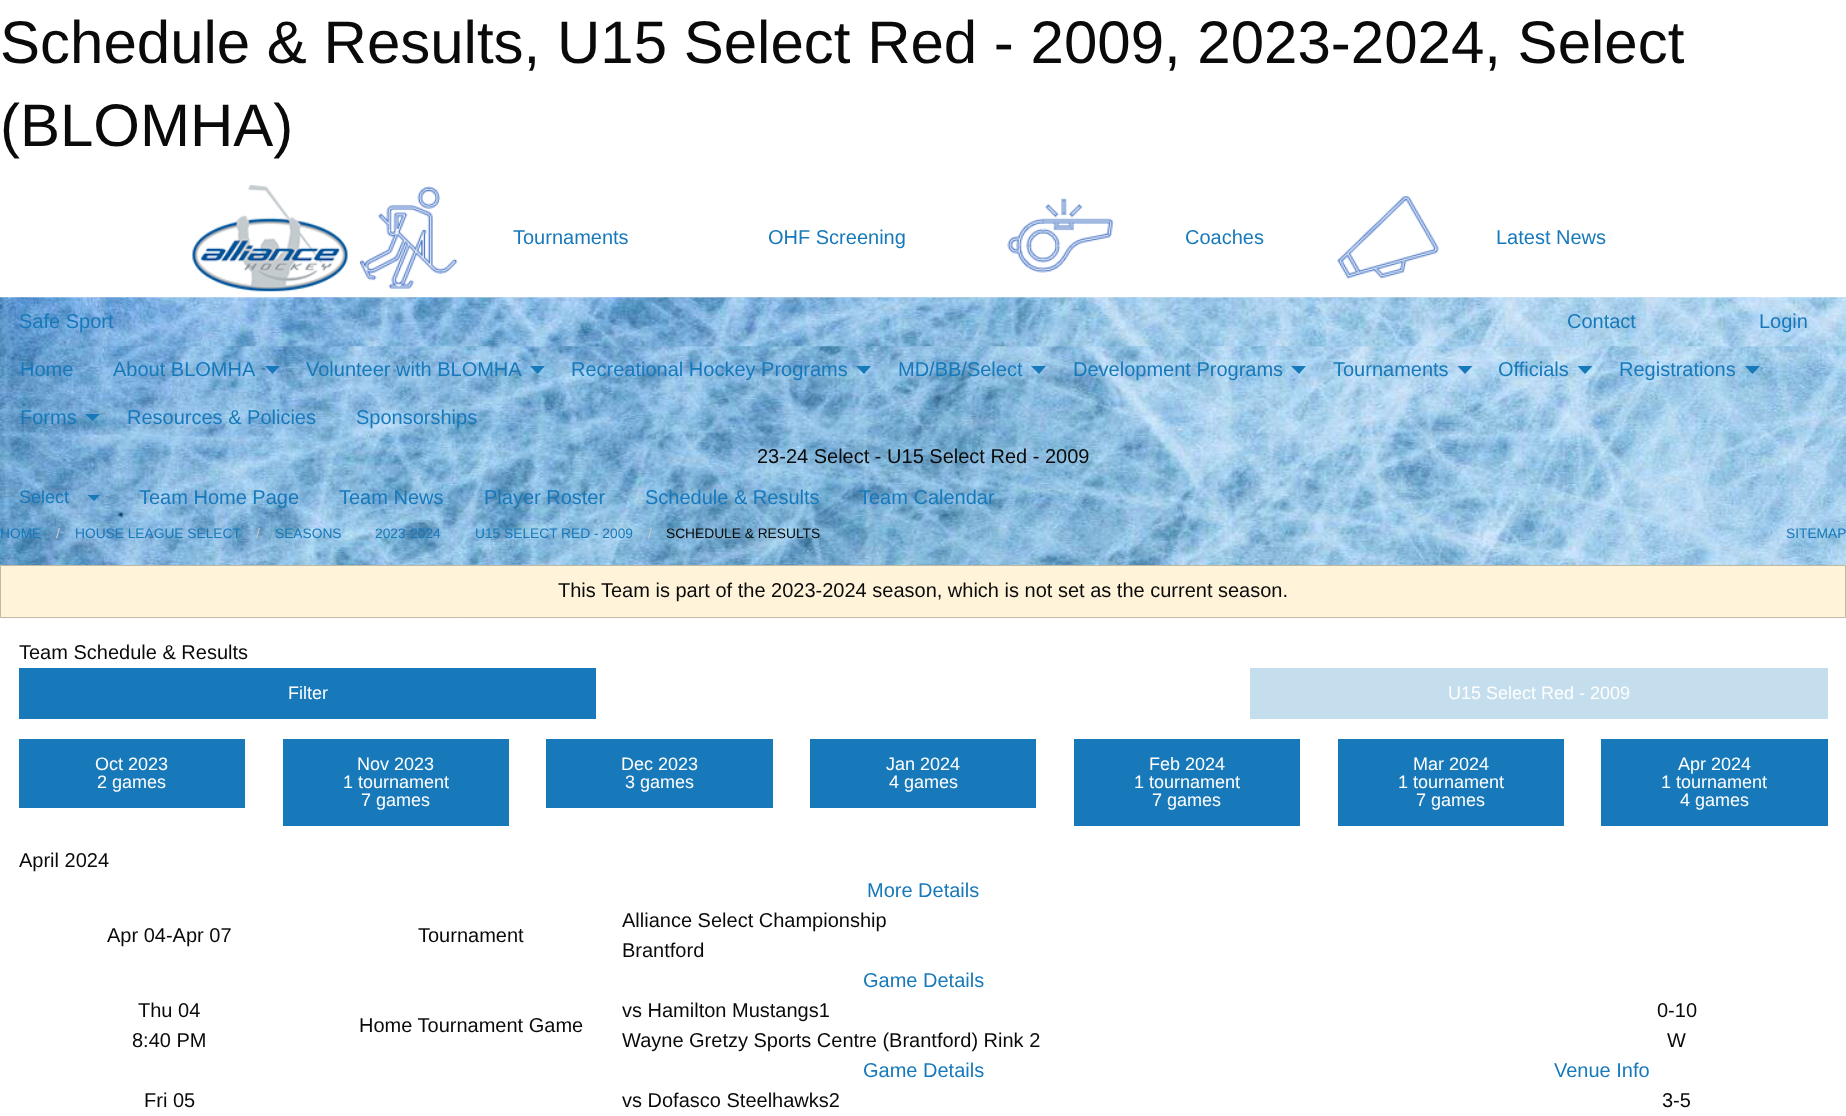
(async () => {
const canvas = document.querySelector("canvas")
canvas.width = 1846
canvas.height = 1116
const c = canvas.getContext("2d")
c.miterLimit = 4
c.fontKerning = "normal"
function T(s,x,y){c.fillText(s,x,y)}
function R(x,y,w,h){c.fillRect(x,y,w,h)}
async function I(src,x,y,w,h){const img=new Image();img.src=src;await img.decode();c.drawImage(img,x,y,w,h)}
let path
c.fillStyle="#fff"
R(0,0,1846,1116)
c.font="60px Liberation Sans"
c.fillStyle="#0a0a0a"
T("Schedule & Results, U15 Select Red - 2009, 2023-2024, Select",0,63)
T("(BLOMHA)",0,146)
await I("1.png",192,185,156,107)
await I("2.png",359,186,99,103)
c.font="20px Liberation Sans"
c.fillStyle="#1779ba"
T("Tournaments",513,244)
T("OHF Screening",768,244)
await I("3.png",1007,198,107,75)
T("Coaches",1185,244)
await I("4.png",1337,196,102,83)
T("Latest News",1496,244)
await I("5.png",0,297,1846,268)
await I("6.png",0,297,1846,50)
T("Safe Sport",19,328)
T("Contact",1567,328)
T("Login",1759,328)
T("Home",20,376)
T("About BLOMHA",113,376)
path = new Path2D("M265 366h15l-7.5 8z")
c.fill(path)
T("Volunteer with BLOMHA",306,376)
path = new Path2D("M530 366h15l-7.5 8z")
c.fill(path)
T("Recreational Hockey Programs",571,376)
path = new Path2D("M856 366h15l-7 8z")
c.fill(path)
T("MD/BB/Select",898,376)
path = new Path2D("M1031 366h15l-7 8z")
c.fill(path)
T("Development Programs",1073,376)
path = new Path2D("M1291 366h15l-7 8z")
c.fill(path)
T("Tournaments",1333,376)
path = new Path2D("M1457.5 366h15l-7.5 8z")
c.fill(path)
T("Officials",1498,376)
path = new Path2D("M1577.5 366h15l-7.5 8z")
c.fill(path)
T("Registrations",1619,376)
path = new Path2D("M1745 366h15l-7.5 8z")
c.fill(path)
T("Forms",20,424)
path = new Path2D("M85 414h15l-7.5 7z")
c.fill(path)
T("Resources & Policies",127,424)
T("Sponsorships",356,424)
c.fillStyle="#0a0a0a"
T("23-24 Select - U15 Select Red - 2009",757,463)
c.font="18px Liberation Sans"
c.fillStyle="#1779ba"
T("Select",19,503)
path = new Path2D("M87.5 495h12.5l-6 6z")
c.fill(path)
c.font="20px Liberation Sans"
T("Team Home Page",139,504)
T("Team News",339,504)
T("Player Roster",484,504)
T("Schedule & Results",645,504)
T("Team Calendar",859,504)
c.font="13.75px Liberation Sans"
T("HOME",0,538)
c.fillStyle="#cacaca"
T("/",56,538)
c.fillStyle="#1779ba"
T("HOUSE LEAGUE SELECT",75,538)
c.fillStyle="#cacaca"
T("/",256,538)
c.fillStyle="#1779ba"
T("SEASONS",275,538)
T("2023-2024",375,538)
T("U15 SELECT RED - 2009",475,538)
c.fillStyle="#cacaca"
T("/",648,538)
c.fillStyle="#0a0a0a"
T("SCHEDULE & RESULTS",666,538)
c.fillStyle="#1779ba"
T("SITEMAP",1786,538)
c.fillStyle="#fff3d9"
c.beginPath()
c.rect(.5,565.5,1845,52)
c.fill()
c.strokeStyle="#c2b9a5"
c.stroke()
c.font="20px Liberation Sans"
c.fillStyle="#0a0a0a"
T("This Team is part of the 2023-2024 season, which is not set as the current season.",558,597)
T("Team Schedule & Results",19,659)
c.fillStyle="#1779ba"
R(19,668,577,51)
c.font="18px Liberation Sans"
c.fillStyle="#fefefe"
T("Filter",288,699)
c.fillStyle="#c5deee"
R(1250,668,578,51)
c.fillStyle="#fefefe"
T("U15 Select Red - 2009",1448,699)
c.fillStyle="#1779ba"
R(19,739,226,69)
c.fillStyle="#fefefe"
T("Oct 2023",95,770)
T("2 games",97,788)
c.fillStyle="#1779ba"
R(283,739,226,87)
c.fillStyle="#fefefe"
T("Nov 2023",357,770)
T("1 tournament",343,788)
T("7 games",361,806)
c.fillStyle="#1779ba"
R(546,739,227,69)
c.fillStyle="#fefefe"
T("Dec 2023",621,770)
T("3 games",625,788)
c.fillStyle="#1779ba"
R(810,739,226,69)
c.fillStyle="#fefefe"
T("Jan 2024",886,770)
T("4 games",889,788)
c.fillStyle="#1779ba"
R(1074,739,226,87)
c.fillStyle="#fefefe"
T("Feb 2024",1149,770)
T("1 tournament",1134,788)
T("7 games",1152,806)
c.fillStyle="#1779ba"
R(1338,739,226,87)
c.fillStyle="#fefefe"
T("Mar 2024",1413,770)
T("1 tournament",1398,788)
T("7 games",1416,806)
c.fillStyle="#1779ba"
R(1601,739,227,87)
c.fillStyle="#fefefe"
T("Apr 2024",1678,770)
T("1 tournament",1661,788)
T("4 games",1680,806)
c.font="20px Liberation Sans"
c.fillStyle="#0a0a0a"
T("April 2024",19,867)
c.fillStyle="#1779ba"
T("More Details",867,897)
c.fillStyle="#0a0a0a"
T("Apr 04-Apr 07",107,942)
T("Tournament",418,942)
T("Alliance Select Championship",622,927)
T("Brantford",622,957)
c.fillStyle="#1779ba"
T("Game Details",863,987)
c.fillStyle="#0a0a0a"
T("Thu 04",138,1017)
T("8:40 PM",132,1047)
T("Home Tournament Game",359,1032)
T("vs Hamilton Mustangs1",622,1017)
T("Wayne Gretzy Sports Centre (Brantford) Rink 2",622,1047)
T("0-10",1657,1017)
T("W",1667,1047)
c.fillStyle="#1779ba"
T("Game Details",863,1077)
T("Venue Info",1554,1077)
c.fillStyle="#0a0a0a"
T("Fri 05",144,1107)
T("vs Dofasco Steelhawks2",622,1107)
T("3-5",1662,1107)
})()
